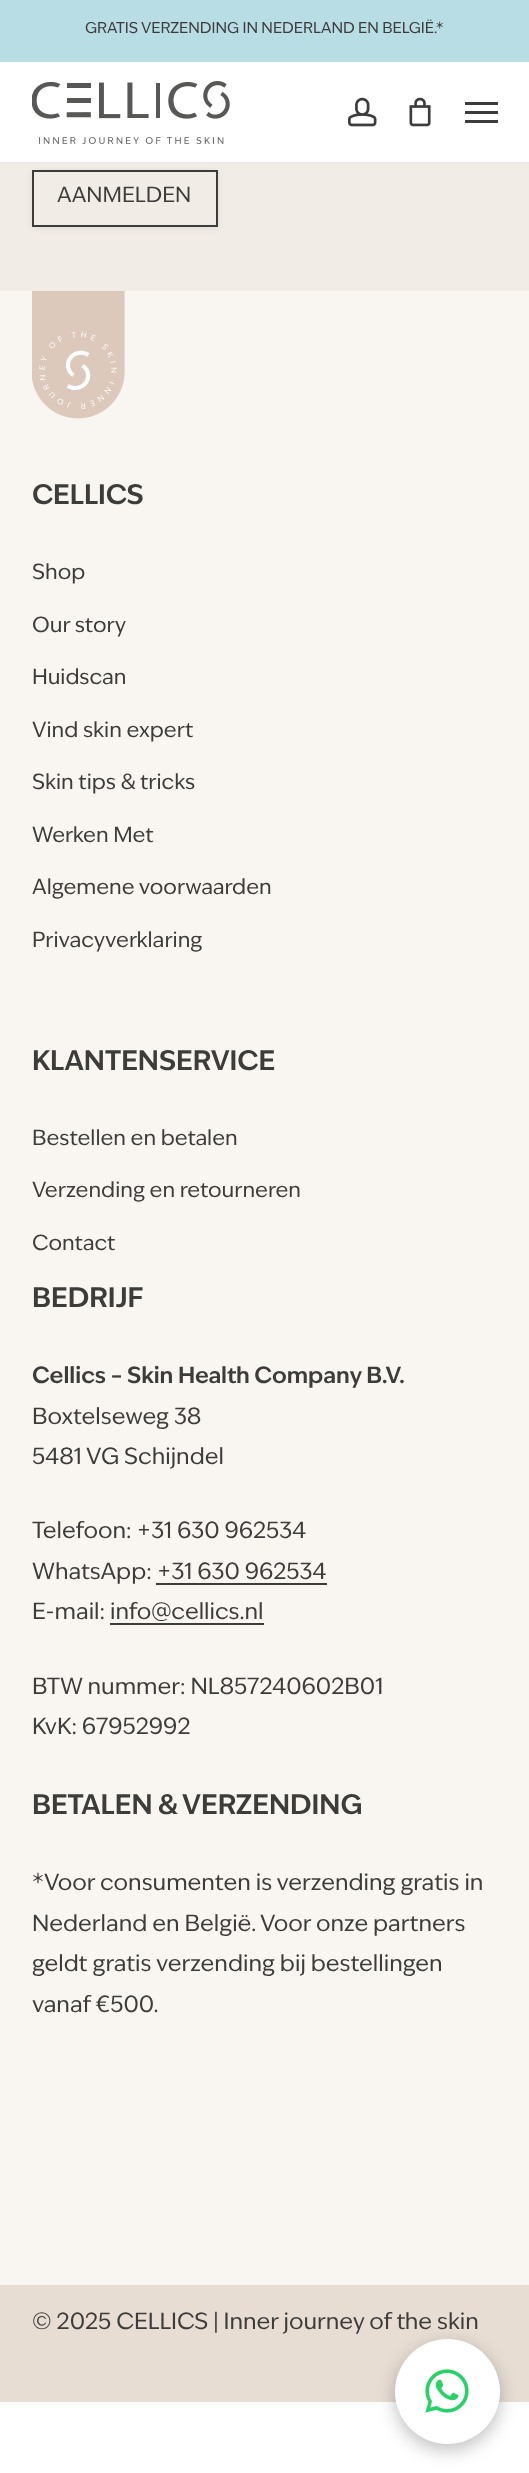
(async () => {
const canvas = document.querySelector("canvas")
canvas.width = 529
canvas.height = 2473
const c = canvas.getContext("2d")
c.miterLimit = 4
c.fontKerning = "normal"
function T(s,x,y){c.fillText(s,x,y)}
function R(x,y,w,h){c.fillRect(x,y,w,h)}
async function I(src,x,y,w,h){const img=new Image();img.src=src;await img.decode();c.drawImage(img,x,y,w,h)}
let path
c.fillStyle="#fff"
R(0,0,529,2473)
c.fillStyle="#f1ece5"
R(0,164,529,127)
c.save()
path = new Path2D("M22 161h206v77h-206zm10 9h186v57h-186z")
c.clip(path,"evenodd")
c.fillStyle="#12196114"
c.filter="blur(3px)"
c.beginPath()
c.rect(32,171,186,57)
c.fill()
c.filter="none"
c.restore()
c.fillStyle="#eaeaea"
R(0,162,529,2)
c.fillStyle="#b9dde5"
R(0,0,529,62)
c.font="15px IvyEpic"
c.fillStyle="#3c3c3b"
T("GRATIS VERZENDING IN NEDERLAND EN BELGIË.*",85,33)
await I("1.png",32,81,198,63)
await I("2.png",348,97,29,30)
await I("3.png",409,97,22,30)
R(465,102,33,3)
R(465,120,33,3)
R(465,111,33,3)
c.strokeStyle="#3c3c3b"
c.lineWidth=2
c.strokeRect(33,171,184,55)
c.font="21px IvyEpic"
T("AANMELDEN",57,202)
c.fillStyle="#f9f5f0"
R(0,291,529,1994)
await I("4.png",32,291,93,128)
c.font="600 27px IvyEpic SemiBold"
c.fillStyle="#3c3c3b"
T("CELLICS",32,504)
c.font="21px IvyEpic"
T("Shop",32,579)
T("Our story",32,632)
T("Huidscan",32,684)
T("Vind skin expert",32,737)
T("Skin tips & tricks",32,789)
T("Werken Met",32,842)
T("Algemene voorwaarden",32,894)
T("Privacyverklaring",32,947)
c.font="600 27px IvyEpic SemiBold"
T("KLANTENSERVICE",32,1070)
c.font="21px IvyEpic"
T("Bestellen en betalen",32,1145)
T("Verzending en retourneren",32,1197)
T("Contact",32,1250)
c.font="600 27px IvyEpic SemiBold"
T("BEDRIJF",32,1307)
c.font="600 22.5px IvyEpic SemiBold"
T("Cellics – Skin Health Company B.V.",32,1383)
c.font="22.5px IvyEpic"
T("Boxtelseweg 38",32,1424)
T("5481 VG Schijndel",32,1464)
T("Telefoon: +31 630 962534",32,1538)
T("WhatsApp: +31 630 962534",32,1579)
R(156,1583,171,2)
T("E-mail: info@cellics.nl",32,1619)
R(110,1623,154,2)
T("BTW nummer: NL857240602B01",32,1694)
T("KvK: 67952992",32,1734)
c.font="600 27px IvyEpic SemiBold"
T("BETALEN & VERZENDING",32,1814)
c.font="22.5px IvyEpic"
T("*Voor consumenten is verzending gratis in",32,1890)
T("Nederland en België. Voor onze partners",32,1931)
T("geldt gratis verzending bij bestellingen",32,1971)
T("vanaf €500.",32,2012)
c.fillStyle="#e7ddd3"
R(0,2285,529,117)
c.fillStyle="#3c3c3b"
T("© 2025 CELLICS | Inner journey of the skin",32,2329)
c.fillStyle="#00000040"
c.filter="blur(9px)"
c.beginPath()
c.roundRect(395,2345,105,105,52.5)
c.fill()
c.filter="none"
c.fillStyle="#fff"
c.beginPath()
c.arc(447.5,2391.5,52.5,0,7)
c.fill()
await I("5.png",425,2369,44,44)
})()
